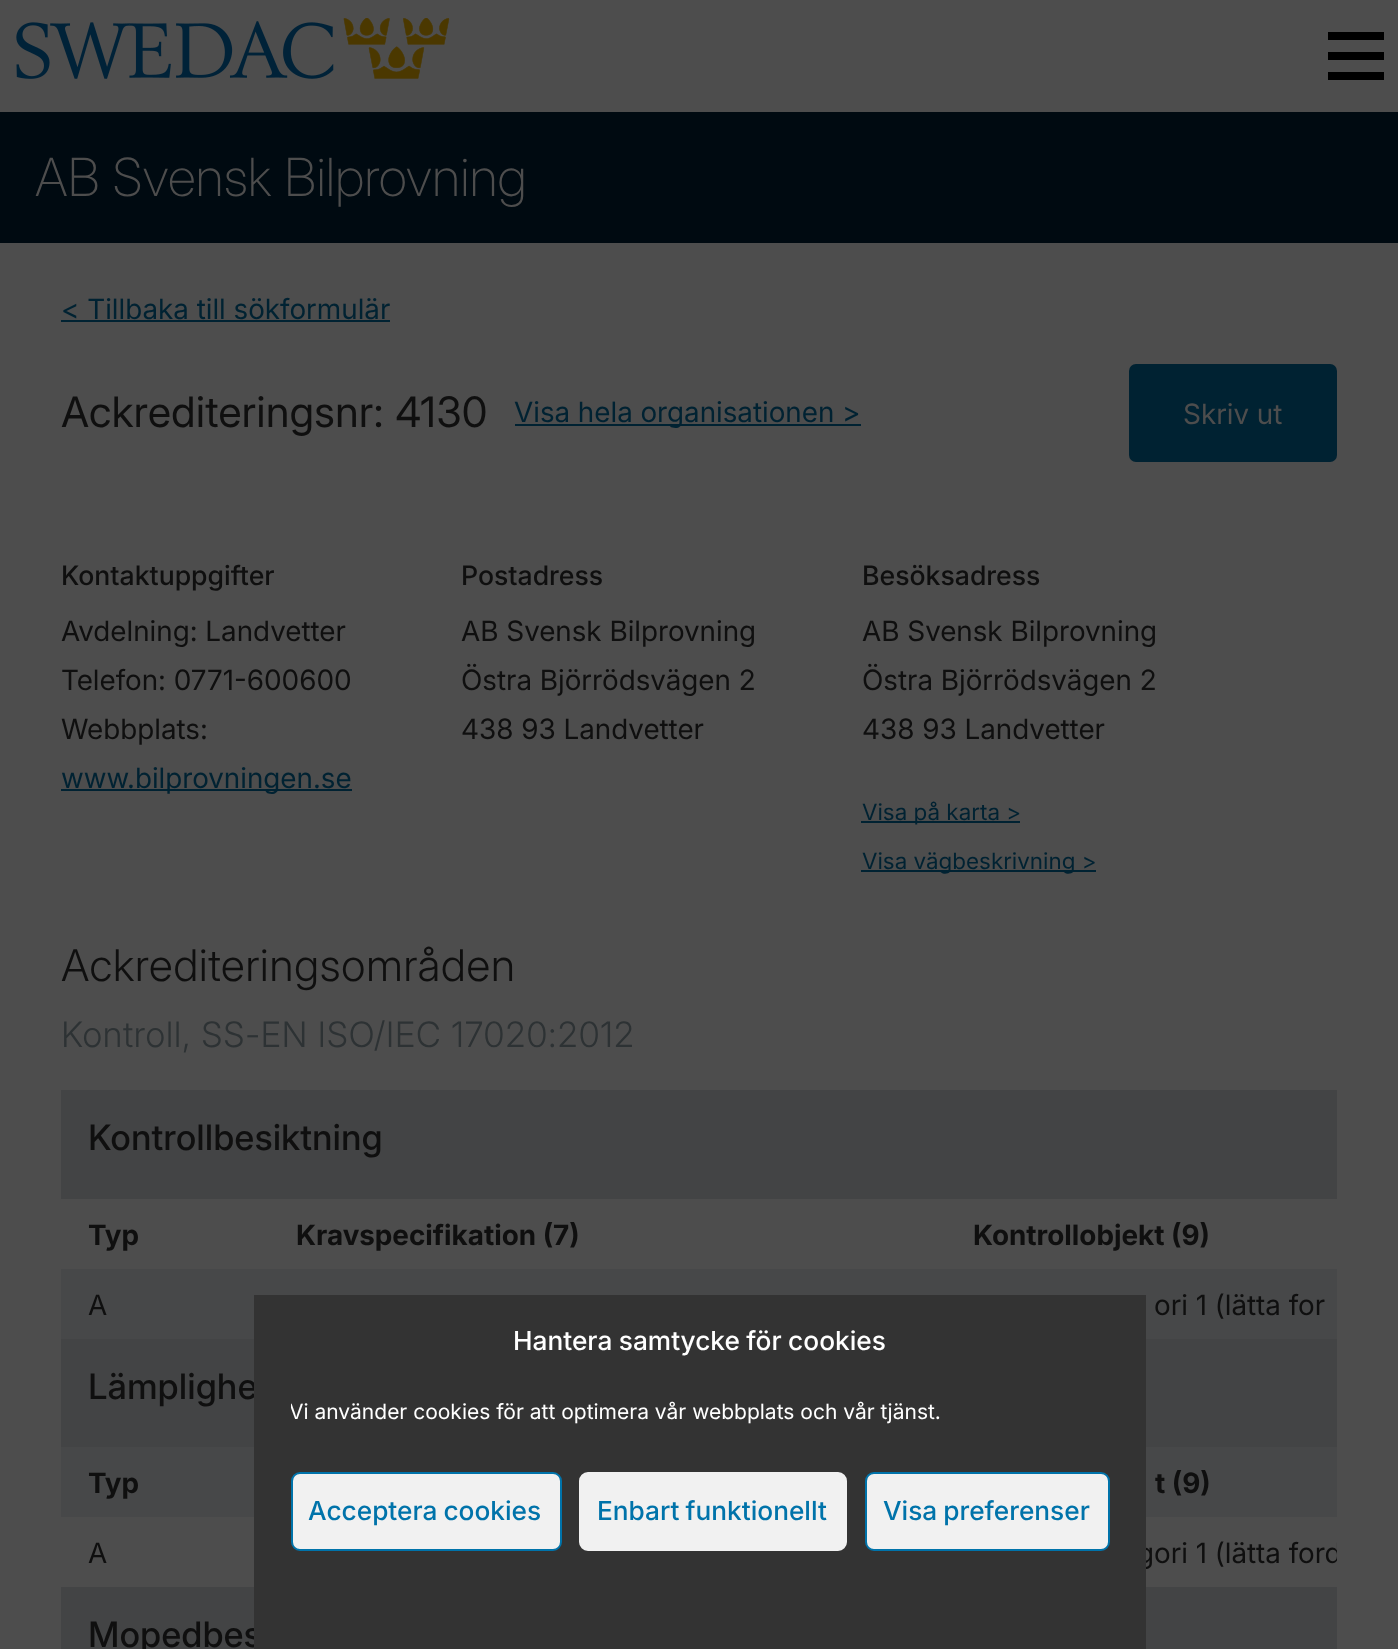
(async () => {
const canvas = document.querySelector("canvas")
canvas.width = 1398
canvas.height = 1649
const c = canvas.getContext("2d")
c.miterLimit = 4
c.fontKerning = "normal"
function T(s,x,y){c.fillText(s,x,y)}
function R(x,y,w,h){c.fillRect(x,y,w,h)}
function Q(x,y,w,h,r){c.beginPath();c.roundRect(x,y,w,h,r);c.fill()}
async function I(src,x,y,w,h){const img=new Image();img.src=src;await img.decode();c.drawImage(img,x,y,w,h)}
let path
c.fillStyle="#4d4d4d"
R(0,0,1398,1649)
await I("1.png",16,18,434,61)
c.save()
c.beginPath()
c.rect(1328,28,56,56)
c.clip()
c.fillStyle="#000"
path = new Path2D("M1324 32h64v8h-64zm0 20h64v8h-64zm0 20h64v8h-64z")
c.fill(path)
c.restore()
c.fillStyle="#000a11"
R(0,112,1398,131)
c.font="200 52.5px Inter"
c.fillStyle="#4d4d4d"
T("AB Svensk Bilprovning",35,196)
c.font="28px Inter"
c.fillStyle="#002232"
T("< Tillbaka till sökformulär",61,319)
R(61,320,329,2)
c.font="42px 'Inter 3'"
c.fillStyle="#0f0f0f"
T("Ackrediteringsnr: 4130",61,427)
c.fillStyle="#002232"
R(515,424,346,2)
c.font="28px Inter"
T("Visa hela organisationen >",514,422)
Q(1129,364,208,98,7)
c.fillStyle="#4d4d4d"
T("Skriv ut",1183,424)
c.font="500 26.75px Inter"
c.fillStyle="#0f0f0f"
T("Kontaktuppgifter",61,585)
c.font="28px Inter"
T("Avdelning: Landvetter",61,641)
T("Telefon: 0771-600600",61,690)
T("Webbplats:",61,739)
c.fillStyle="#002232"
R(61,789,291,2)
T("www.bilprovningen.se",61,788)
c.font="500 26.75px Inter"
c.fillStyle="#0f0f0f"
T("Postadress",461,585)
c.font="28px Inter"
T("AB Svensk Bilprovning",461,641)
T("Östra Björrödsvägen 2",461,690)
T("438 93 Landvetter",461,739)
c.font="500 26.75px Inter"
T("Besöksadress",862,585)
c.font="28px Inter"
T("AB Svensk Bilprovning",862,641)
T("Östra Björrödsvägen 2",862,690)
T("438 93 Landvetter",862,739)
c.fillStyle="#002232"
R(861,821,159,2)
c.font="22.4px 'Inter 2'"
T("Visa på karta >",862,820)
R(861,870,235,2)
T("Visa vägbeskrivning >",862,869)
c.letterSpacing="0.35px"
c.font="300 43.75px Inter"
c.fillStyle="#0f0f0f"
T("Ackrediteringsområden",61,981)
c.font="300 35px 'Inter 2'"
c.fillStyle="#2d3234"
T("Kontroll, SS-EN ISO/IEC 17020:2012",61,1047)
c.fillStyle="#434445"
R(61,1090,1276,109)
c.letterSpacing="0px"
c.font="500 35px 'Inter 2'"
c.fillStyle="#0f0f0f"
T("Kontrollbesiktning",88,1150)
c.font="bold 28px Inter"
T("Typ",88,1245)
T("Kravspecifikation (7)",296,1245)
T("Kontrollobjekt (9)",973,1245)
c.fillStyle="#474849"
R(61,1269,1276,70)
c.font="28px Inter"
c.fillStyle="#0f0f0f"
T("A",88,1315)
T("ori 1 (lätta for",1154,1315)
c.fillStyle="#434445"
R(61,1339,1276,108)
c.font="500 35px 'Inter 2'"
c.fillStyle="#0f0f0f"
T("Lämplighe",88,1399)
c.fillStyle="#474849"
R(61,1447,1276,70)
c.font="bold 28px Inter"
c.fillStyle="#0f0f0f"
T("Typ",88,1493)
T("t (9)",1155,1493)
c.font="28px Inter"
T("A",88,1563)
c.save()
c.beginPath()
c.rect(61,1090,1276,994)
c.clip()
T("gori 1 (lätta ford",1137,1563)
c.restore()
c.fillStyle="#434445"
R(61,1587,1276,62)
c.font="500 35px 'Inter 2'"
c.fillStyle="#0f0f0f"
T("Mopedbes",88,1647)
c.fillStyle="#333"
R(254,1295,892,354)
c.wordSpacing="-0.5px"
c.font="500 26.25px 'Inter 3'"
c.fillStyle="#fff"
T("Hantera samtycke för cookies",513,1350)
c.save()
c.beginPath()
c.rect(291,1397,819,40)
c.clip()
c.wordSpacing="0px"
c.font="21px 'Inter 2'"
T("Vi använder cookies för att optimera vår webbplats och vår tjänst.",289,1419)
c.restore()
c.fillStyle="#f1f1f1"
c.beginPath()
c.roundRect(292,1473,269,77,8)
c.fill()
c.strokeStyle="#0073aa"
c.lineWidth=2
c.stroke()
c.wordSpacing="-1px"
c.fillStyle="#0073aa"
T("Acceptera cookies",308,1520)
c.fillStyle="#f1f1f1"
c.beginPath()
c.roundRect(580,1473,266,77,8)
c.fill()
c.strokeStyle="#f1f1f1"
c.stroke()
c.fillStyle="#0073aa"
T("Enbart funktionellt",597,1520)
c.fillStyle="#f1f1f1"
c.beginPath()
c.roundRect(866,1473,243,77,8)
c.fill()
c.strokeStyle="#0073aa"
c.stroke()
c.fillStyle="#0073aa"
T("Visa preferenser",883,1520)
})()
